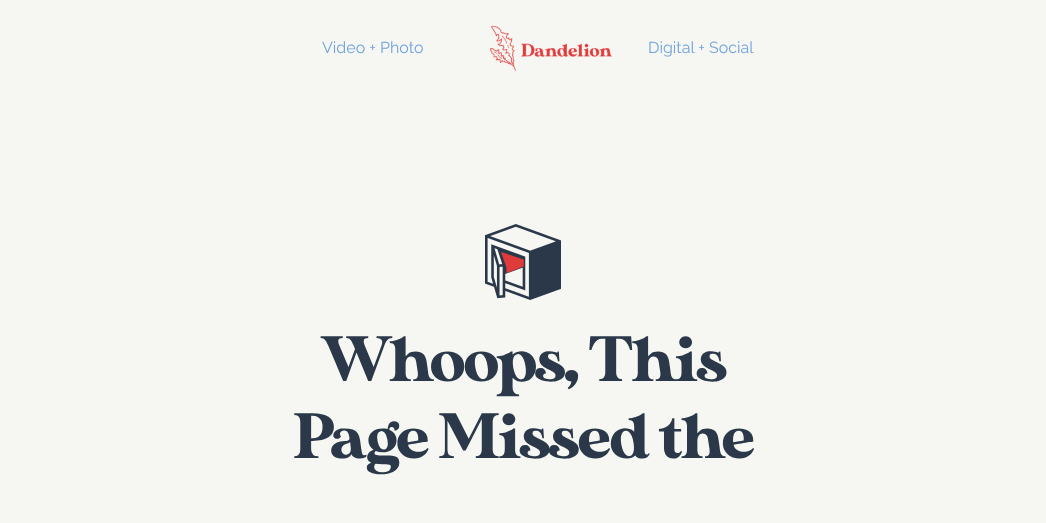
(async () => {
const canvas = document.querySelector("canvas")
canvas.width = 1046
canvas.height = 523
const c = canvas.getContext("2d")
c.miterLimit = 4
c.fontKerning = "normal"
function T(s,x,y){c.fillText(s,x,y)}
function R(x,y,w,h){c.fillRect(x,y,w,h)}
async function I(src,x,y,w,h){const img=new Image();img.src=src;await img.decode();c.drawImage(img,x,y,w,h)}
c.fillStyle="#f6f7f2"
R(0,0,1046,523)
c.font="16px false"
c.fillStyle="#70a3dd"
T("Video + Photo",322,53)
await I("1.png",489,25,124,46)
T("Digital + Social",648,53)
await I("2.png",485,224,76,76)
c.letterSpacing="-2px"
c.font="64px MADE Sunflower"
c.fillStyle="#2a3849"
T("Whoops, This",320,381)
T("Page Missed the",293,458)
})()
